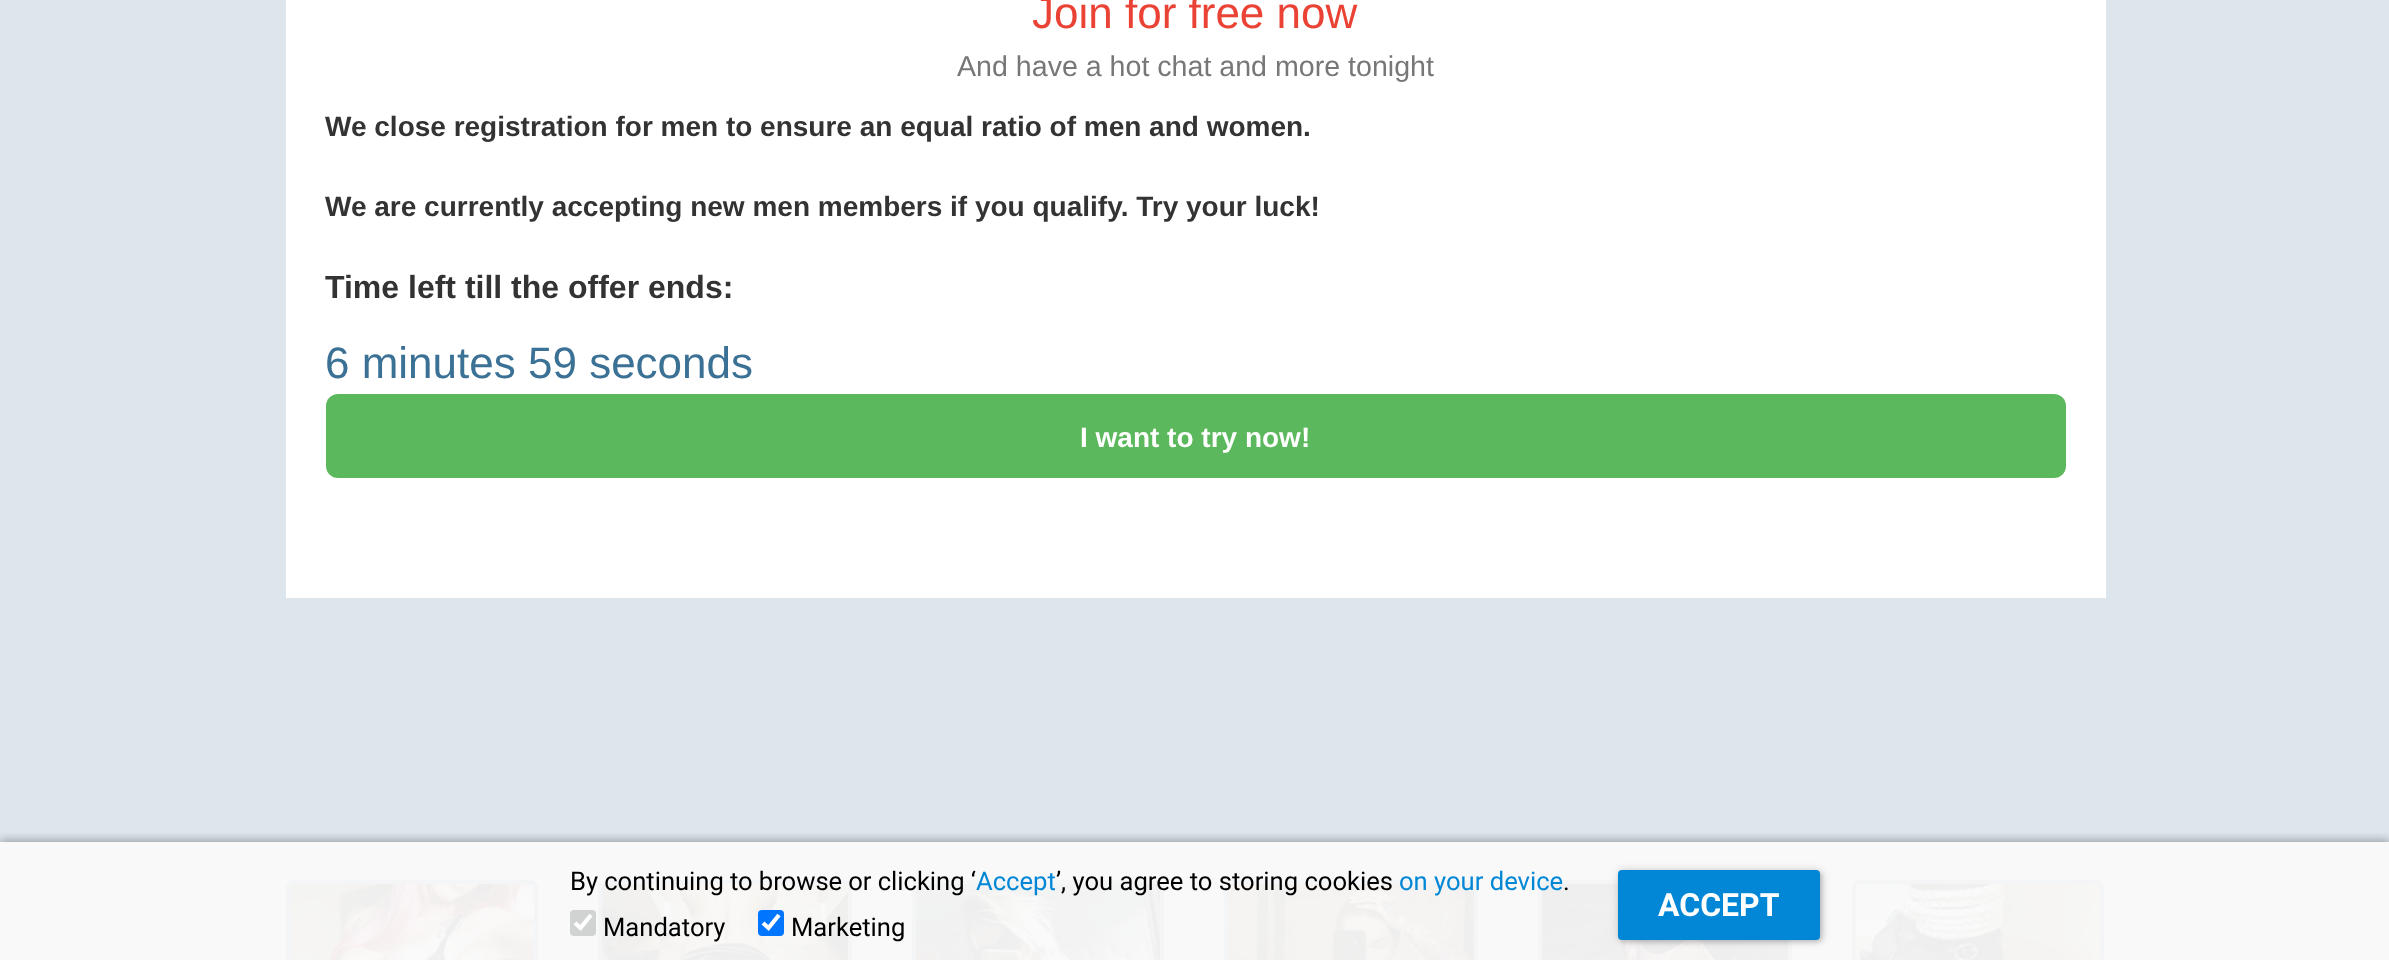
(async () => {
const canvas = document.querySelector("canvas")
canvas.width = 2389
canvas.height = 960
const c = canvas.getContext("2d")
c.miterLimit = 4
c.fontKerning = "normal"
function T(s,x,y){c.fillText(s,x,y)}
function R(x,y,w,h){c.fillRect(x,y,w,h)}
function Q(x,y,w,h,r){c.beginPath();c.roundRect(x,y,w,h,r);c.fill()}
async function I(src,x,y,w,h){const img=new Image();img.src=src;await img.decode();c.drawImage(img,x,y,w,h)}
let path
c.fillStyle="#dce6ec"
R(0,0,2389,960)
c.fillStyle="#f9f9f9"
R(0,842,2389,118)
c.fillStyle="#fff"
R(286,0,1820,598)
c.font="44px Liberation Sans"
c.fillStyle="#ea4335"
T("Join for free now",1032,28)
c.font="28.6px Liberation Sans"
c.fillStyle="#777"
T("And have a hot chat and more tonight",957,76)
c.font="bold 28px Liberation Sans"
c.fillStyle="#333"
T("We close registration for men to ensure an equal ratio of men and women.",325,136)
T("We are currently accepting new men members if you qualify. Try your luck!",325,216)
c.font="bold 32px Liberation Sans"
T("Time left till the offer ends:",325,298)
c.font="44px Liberation Sans"
c.fillStyle="#3b7195"
T("6 minutes 59 seconds",325,378)
c.fillStyle="#5cb85c"
Q(326,394,1740,84,12)
c.font="bold 28px Liberation Sans"
c.fillStyle="#fff"
T("I want to try now!",1080,447)
c.beginPath()
c.roundRect(288,882,248,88,6)
c.strokeStyle="#f4f5f7"
c.lineWidth=4
c.stroke()
await I("1.png",290,884,244,76)
c.beginPath()
c.roundRect(600,882,250,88,6)
c.stroke()
await I("2.png",602,884,246,76)
c.beginPath()
c.roundRect(914,882,248,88,6)
c.stroke()
await I("3.png",916,884,244,76)
c.beginPath()
c.roundRect(1226,882,250,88,6)
c.stroke()
await I("4.png",1228,884,246,76)
c.beginPath()
c.roundRect(1540,882,250,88,6)
c.stroke()
await I("5.png",1542,884,246,76)
c.beginPath()
c.roundRect(1854,882,248,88,6)
c.stroke()
await I("6.png",1856,884,244,76)
c.save()
c.beginPath()
c.rect(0,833,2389,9)
c.clip()
c.fillStyle="#0000004d"
c.filter="blur(5px)"
c.beginPath()
c.rect(0,840,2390,118)
c.fill()
c.filter="none"
c.restore()
c.wordSpacing="-0.25px"
c.font="25.6px Roboto"
c.fillStyle="#000"
T("By continuing to browse or clicking ‘",570,890)
c.wordSpacing="0px"
c.fillStyle="#0287d6"
T("Accept",976,890)
c.fillStyle="#000"
T("’, you agree to storing cookies",1056,890)
c.fillStyle="#0287d6"
T("on your device",1399,890)
c.fillStyle="#000"
T(".",1563,890)
c.fillStyle="#d1d2d2"
Q(570,910,26,26,4)
path = new Path2D("M575 923l5.5 5l10.5-13")
c.strokeStyle="#fff"
c.lineWidth=4.2
c.stroke(path)
c.fillStyle="#000"
T("Mandatory",603,936)
c.fillStyle="#0075ff"
Q(758,910,26,26,4)
path = new Path2D("M763 923l5.5 5l10.5-13")
c.stroke(path)
c.fillStyle="#000"
T("Marketing",791,936)
c.fillStyle="#0000001f"
c.filter="blur(4px)"
c.beginPath()
c.roundRect(1618,870,202,70,4)
c.fill()
c.filter="none"
c.fillStyle="#00000014"
c.filter="blur(4px)"
c.beginPath()
c.roundRect(1622,872,202,70,4)
c.fill()
c.filter="none"
c.fillStyle="#00000021"
c.filter="blur(2px)"
c.beginPath()
c.roundRect(1620,872,202,70,4)
c.fill()
c.filter="none"
c.fillStyle="#0287d6"
Q(1618,870,202,70,4)
c.font="bold 32px Roboto"
c.fillStyle="#fff"
T("ACCEPT",1658,916)
})()
